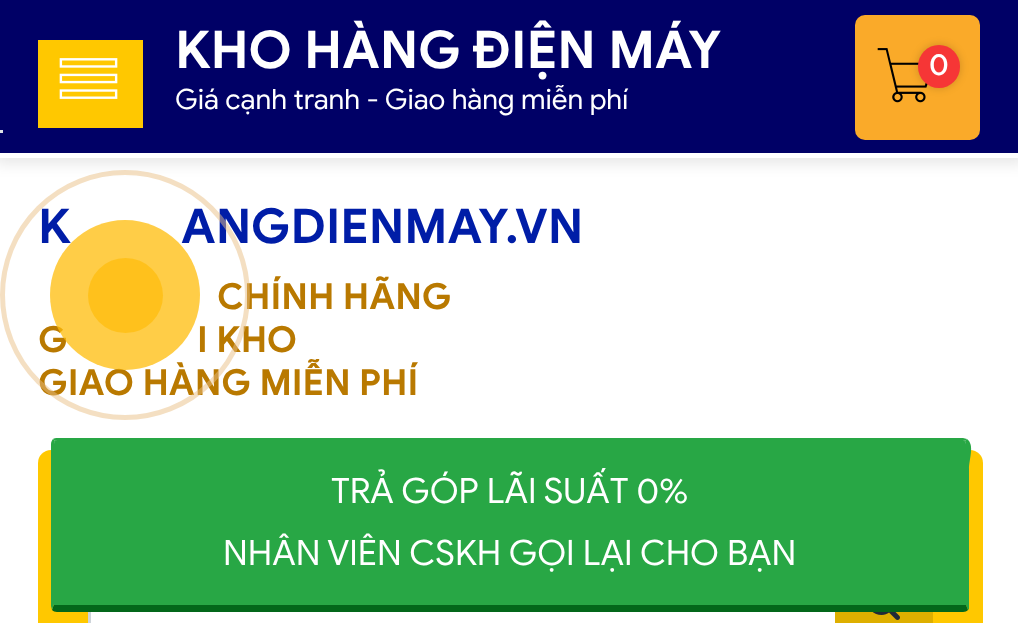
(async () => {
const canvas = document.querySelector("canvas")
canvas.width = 1018
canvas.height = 623
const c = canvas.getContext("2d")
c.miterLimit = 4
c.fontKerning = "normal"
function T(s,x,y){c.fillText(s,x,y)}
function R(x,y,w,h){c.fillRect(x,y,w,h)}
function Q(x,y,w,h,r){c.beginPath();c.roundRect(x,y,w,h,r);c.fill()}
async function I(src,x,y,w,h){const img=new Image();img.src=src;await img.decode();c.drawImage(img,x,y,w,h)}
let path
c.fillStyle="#fff"
R(0,0,1018,623)
c.fillStyle="#0000001a"
c.filter="blur(7.5px)"
c.beginPath()
c.rect(-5,-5,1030,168)
c.fill()
c.filter="none"
c.fillStyle="#006"
R(0,0,1018,153)
c.fillStyle="#fff"
R(0,153,1018,5)
c.fillStyle="#ffc800"
R(38,40,105,88)
await I("1.png",59,58,59,41)
c.font="bold 52px Google Sans"
c.fillStyle="#fff"
T("KHO HÀNG ĐIỆN MÁY",175,68)
c.font="28px Google Sans"
T("Giá cạnh tranh - Giao hàng miễn phí",175,109)
c.fillStyle="#dee2e6"
R(0,130,3,3)
c.fillStyle="#faaa29"
Q(855,15,125,125,10)
await I("2.png",877,48,51,55)
c.fillStyle="#0000002e"
c.filter="blur(4px)"
c.beginPath()
c.roundRect(918,45,42,43,21)
c.fill()
c.filter="none"
c.fillStyle="#f63636"
Q(918,45,42,43,21)
c.font="500 30px Google Sans"
c.fillStyle="#fff"
T("0",929,75)
c.font="bold 48px Google Sans"
c.fillStyle="#001da7"
T("K",38,243)
T("ANGDIENMAY.VN",181,243)
c.font="bold 36px Google Sans"
c.fillStyle="#b97900"
T("CHÍNH HÃNG",217,309)
T("G",38,352)
T("I KHO",197,352)
T("GIAO HÀNG MIỄN PHÍ",38,395)
c.beginPath()
c.arc(125,295,122.5,0,7)
c.strokeStyle="#eac08680"
c.lineWidth=5
c.stroke()
c.fillStyle="#ffbc0abf"
c.beginPath()
c.arc(125,295,75,0,7)
c.fill()
c.fillStyle="#ffbc0ab3"
c.beginPath()
c.arc(125.5,295.5,37.5,0,7)
c.fill()
c.fillStyle="#ffc800"
Q(38,450,945,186,13)
c.fillStyle="#fff"
R(91,612,744,11)
c.strokeStyle="#ced4da"
c.lineWidth=3
c.strokeRect(89.5,541.5,837,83)
c.fillStyle="#deaf00"
R(835,612,98,11)
await I("3.png",872,612,28,8)
c.fillStyle="#28a745"
path = new Path2D("M57 440h906c1 0 3 2 3 4v161h-912v-161c0-2 1-4 3-4z")
c.fill(path)
path = new Path2D("M57 438c-1 0-3 0-4 1l2 2l2-1h906l2 1l2-2l-4-1z")
c.fill(path)
path = new Path2D("M967 439c8 6 2 20 2 30v140l-1 1l-2-5v-161c0-1-1-2-1-3z")
c.fill(path)
c.fillStyle="#03671a"
path = new Path2D("M968 610c-1 1-3 2-5 2h-906c-2 0-4-1-5-2l2-6v1h912z")
c.fill(path)
c.fillStyle="#28a745"
path = new Path2D("M51 444c0-2 1-4 2-5l2 2l-1 3v160l-2 6l-1-4z")
c.fill(path)
c.font="35px Google Sans"
c.fillStyle="#fff"
T("TRẢ GÓP LÃI SUẤT 0%",331,503)
T("NHÂN VIÊN CSKH GỌI LẠI CHO BẠN",223,565)
})()
